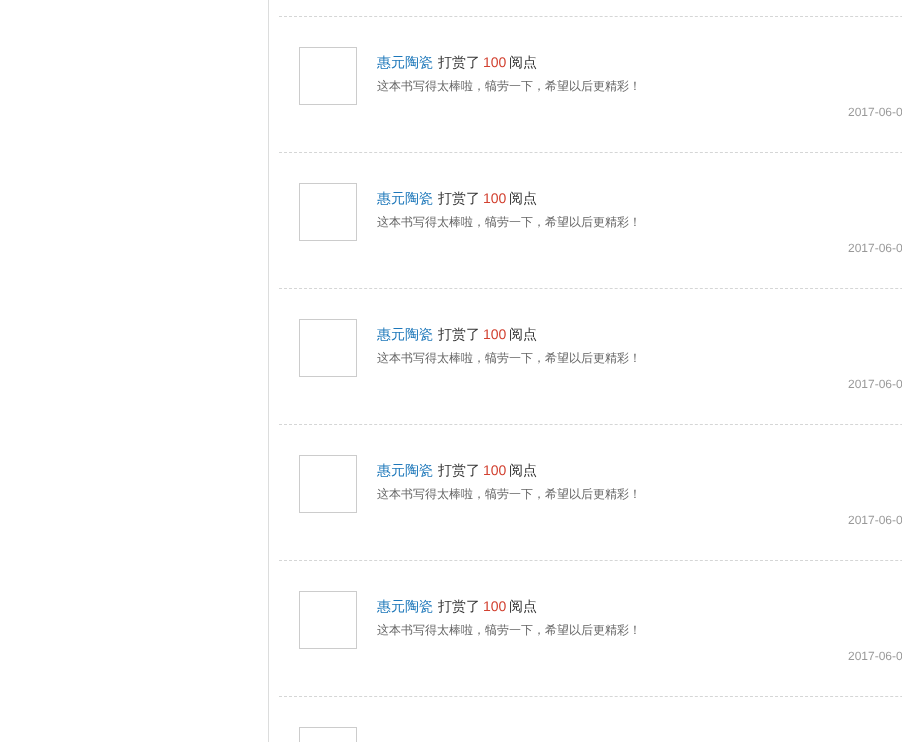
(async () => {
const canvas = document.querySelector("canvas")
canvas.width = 902
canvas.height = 742
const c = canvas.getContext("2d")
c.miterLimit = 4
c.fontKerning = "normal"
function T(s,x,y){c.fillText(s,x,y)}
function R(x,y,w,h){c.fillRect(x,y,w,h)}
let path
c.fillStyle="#fff"
R(0,0,902,742)
c.strokeStyle="#dcdddd"
c.strokeRect(268.5,-.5,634,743)
path = new Path2D("M279 16.5h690")
c.strokeStyle="#d5d6d6"
c.setLineDash([3,2.01])
c.stroke(path)
path = new Path2D("M279 152.5h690")
c.stroke(path)
c.strokeStyle="#ccc"
c.setLineDash([])
c.strokeRect(299.5,47.5,57,57)
c.font="500 14px WenQuanYi Zen Hei"
c.fillStyle="#1c77ba"
T("惠元陶瓷",377,67)
c.fillStyle="#333"
T("打赏了",438,67)
c.font="14px Liberation Sans"
c.fillStyle="#d24130"
T("100",483,67)
c.font="500 14px WenQuanYi Zen Hei"
c.fillStyle="#333"
T("阅点",509,67)
c.font="500 12px WenQuanYi Zen Hei"
c.fillStyle="#666"
T("这本书写得太棒啦，犒劳一下，希望以后更精彩！",377,90)
c.font="12px Liberation Sans"
c.fillStyle="#999"
T("2017-06-0",848,116)
path = new Path2D("M279 288.5h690")
c.strokeStyle="#d5d6d6"
c.setLineDash([3,2.01])
c.stroke(path)
c.strokeStyle="#ccc"
c.setLineDash([])
c.strokeRect(299.5,183.5,57,57)
c.font="500 14px WenQuanYi Zen Hei"
c.fillStyle="#1c77ba"
T("惠元陶瓷",377,203)
c.fillStyle="#333"
T("打赏了",438,203)
c.font="14px Liberation Sans"
c.fillStyle="#d24130"
T("100",483,203)
c.font="500 14px WenQuanYi Zen Hei"
c.fillStyle="#333"
T("阅点",509,203)
c.font="500 12px WenQuanYi Zen Hei"
c.fillStyle="#666"
T("这本书写得太棒啦，犒劳一下，希望以后更精彩！",377,226)
c.font="12px Liberation Sans"
c.fillStyle="#999"
T("2017-06-0",848,252)
path = new Path2D("M279 424.5h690")
c.strokeStyle="#d5d6d6"
c.setLineDash([3,2.01])
c.stroke(path)
c.strokeStyle="#ccc"
c.setLineDash([])
c.strokeRect(299.5,319.5,57,57)
c.font="500 14px WenQuanYi Zen Hei"
c.fillStyle="#1c77ba"
T("惠元陶瓷",377,339)
c.fillStyle="#333"
T("打赏了",438,339)
c.font="14px Liberation Sans"
c.fillStyle="#d24130"
T("100",483,339)
c.font="500 14px WenQuanYi Zen Hei"
c.fillStyle="#333"
T("阅点",509,339)
c.font="500 12px WenQuanYi Zen Hei"
c.fillStyle="#666"
T("这本书写得太棒啦，犒劳一下，希望以后更精彩！",377,362)
c.font="12px Liberation Sans"
c.fillStyle="#999"
T("2017-06-0",848,388)
path = new Path2D("M279 560.5h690")
c.strokeStyle="#d5d6d6"
c.setLineDash([3,2.01])
c.stroke(path)
c.strokeStyle="#ccc"
c.setLineDash([])
c.strokeRect(299.5,455.5,57,57)
c.font="500 14px WenQuanYi Zen Hei"
c.fillStyle="#1c77ba"
T("惠元陶瓷",377,475)
c.fillStyle="#333"
T("打赏了",438,475)
c.font="14px Liberation Sans"
c.fillStyle="#d24130"
T("100",483,475)
c.font="500 14px WenQuanYi Zen Hei"
c.fillStyle="#333"
T("阅点",509,475)
c.font="500 12px WenQuanYi Zen Hei"
c.fillStyle="#666"
T("这本书写得太棒啦，犒劳一下，希望以后更精彩！",377,498)
c.font="12px Liberation Sans"
c.fillStyle="#999"
T("2017-06-0",848,524)
path = new Path2D("M279 696.5h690")
c.strokeStyle="#d5d6d6"
c.setLineDash([3,2.01])
c.stroke(path)
c.strokeStyle="#ccc"
c.setLineDash([])
c.strokeRect(299.5,591.5,57,57)
c.font="500 14px WenQuanYi Zen Hei"
c.fillStyle="#1c77ba"
T("惠元陶瓷",377,611)
c.fillStyle="#333"
T("打赏了",438,611)
c.font="14px Liberation Sans"
c.fillStyle="#d24130"
T("100",483,611)
c.font="500 14px WenQuanYi Zen Hei"
c.fillStyle="#333"
T("阅点",509,611)
c.font="500 12px WenQuanYi Zen Hei"
c.fillStyle="#666"
T("这本书写得太棒啦，犒劳一下，希望以后更精彩！",377,634)
c.font="12px Liberation Sans"
c.fillStyle="#999"
T("2017-06-0",848,660)
c.strokeRect(299.5,727.5,57,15)
})()
